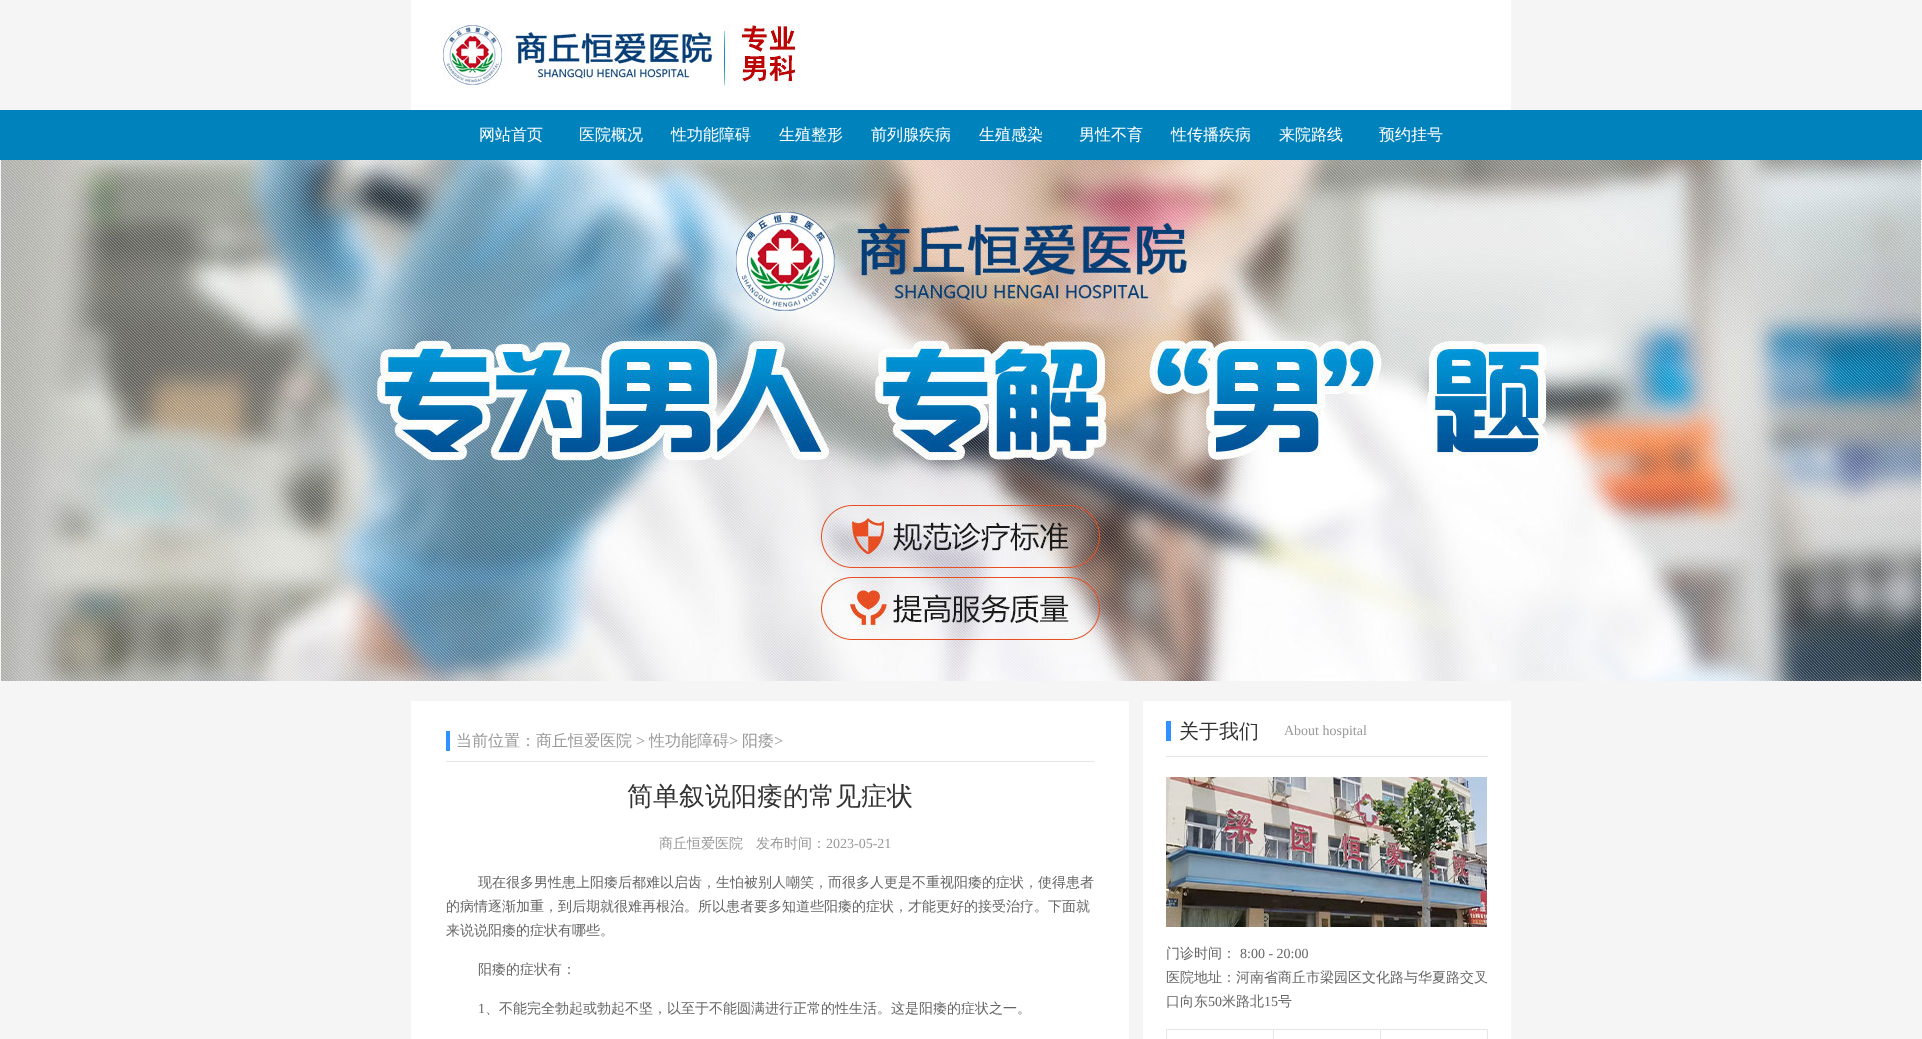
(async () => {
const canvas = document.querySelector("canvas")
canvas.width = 1922
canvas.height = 1039
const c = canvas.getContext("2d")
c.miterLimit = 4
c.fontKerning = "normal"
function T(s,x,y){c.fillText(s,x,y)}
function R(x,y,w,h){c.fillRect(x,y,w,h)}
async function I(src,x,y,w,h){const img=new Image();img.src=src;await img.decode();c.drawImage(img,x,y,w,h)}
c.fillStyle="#f5f5f5"
R(0,0,1922,1039)
await I("1.png",411,0,1100,110)
c.fillStyle="#0082bd"
R(0,110,1922,50)
c.font="500 16px WenQuanYi Zen Hei"
c.fillStyle="#fff"
T("网站首页",479,140)
T("医院概况",579,140)
T("性功能障碍",671,140)
T("生殖整形",779,140)
T("前列腺疾病",871,140)
T("生殖感染",979,140)
T("男性不育",1079,140)
T("性传播疾病",1171,140)
T("来院路线",1279,140)
T("预约挂号",1379,140)
await I("2.png",1,160,1920,521)
R(411,701,718,338)
c.fillStyle="#e6e6e6"
R(446,761,648,1)
c.fillStyle="#2f90ff"
R(446,731,4,20)
c.fillStyle="#999"
T("当前位置：商丘恒爱医院",456,746)
c.font="16px Liberation Serif"
T(">",636,746)
c.font="500 16px WenQuanYi Zen Hei"
T("性功能障碍",649,746)
c.font="16px Liberation Serif"
T(">",729,746)
c.font="500 16px WenQuanYi Zen Hei"
T("阳痿",742,746)
c.font="16px Liberation Serif"
T(">",774,746)
c.font="500 26px WenQuanYi Zen Hei"
c.fillStyle="#333"
T("简单叙说阳痿的常见症状",627,805)
c.font="500 14px WenQuanYi Zen Hei"
c.fillStyle="#999"
T("商丘恒爱医院",659,848)
T("发布时间：",756,848)
c.font="14px Liberation Serif"
T("2023-05-21",826,848)
c.font="500 14px WenQuanYi Zen Hei"
c.fillStyle="#666"
T("现在很多男性患上阳痿后都难以启齿，生怕被别人嘲笑，而很多人更是不重视阳痿的症状，使得患者",478,887)
T("的病情逐渐加重，到后期就很难再根治。所以患者要多知道些阳痿的症状，才能更好的接受治疗。下面就",446,911)
T("来说说阳痿的症状有哪些。",446,935)
T("阳痿的症状有：",478,974)
c.font="14px Liberation Serif"
T("1",478,1013)
c.font="500 14px WenQuanYi Zen Hei"
T("、不能完全勃起或勃起不坚，以至于不能圆满进行正常的性生活。这是阳痿的症状之一。",485,1013)
c.fillStyle="#fff"
R(1143,701,368,338)
c.fillStyle="#2f90ff"
R(1166,721,5,20)
c.font="500 20px WenQuanYi Zen Hei"
c.fillStyle="#333"
T("关于我们",1179,738)
c.font="14px Liberation Serif"
c.fillStyle="#999"
T("About hospital",1284,735)
c.fillStyle="#e5e5e5"
R(1166,756,322,1)
await I("3.png",1166,777,321,150)
c.font="500 14px WenQuanYi Zen Hei"
c.fillStyle="#666"
T("门诊时间：",1166,958)
c.font="14px Liberation Serif"
T("8:00 - 20:00",1240,958)
c.font="500 14px WenQuanYi Zen Hei"
T("医院地址：河南省商丘市梁园区文化路与华夏路交叉",1166,982)
T("口向东",1166,1006)
c.font="14px Liberation Serif"
T("50",1208,1006)
c.font="500 14px WenQuanYi Zen Hei"
T("米路北",1222,1006)
c.font="14px Liberation Serif"
T("15",1264,1006)
c.font="500 14px WenQuanYi Zen Hei"
T("号",1278,1006)
c.strokeStyle="#e6e6e6"
c.strokeRect(1166.5,1029.5,107,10)
c.fillStyle="#e6e6e6"
R(1274,1029,214,1)
R(1380,1029,1,10)
R(1487,1029,1,10)
})()
